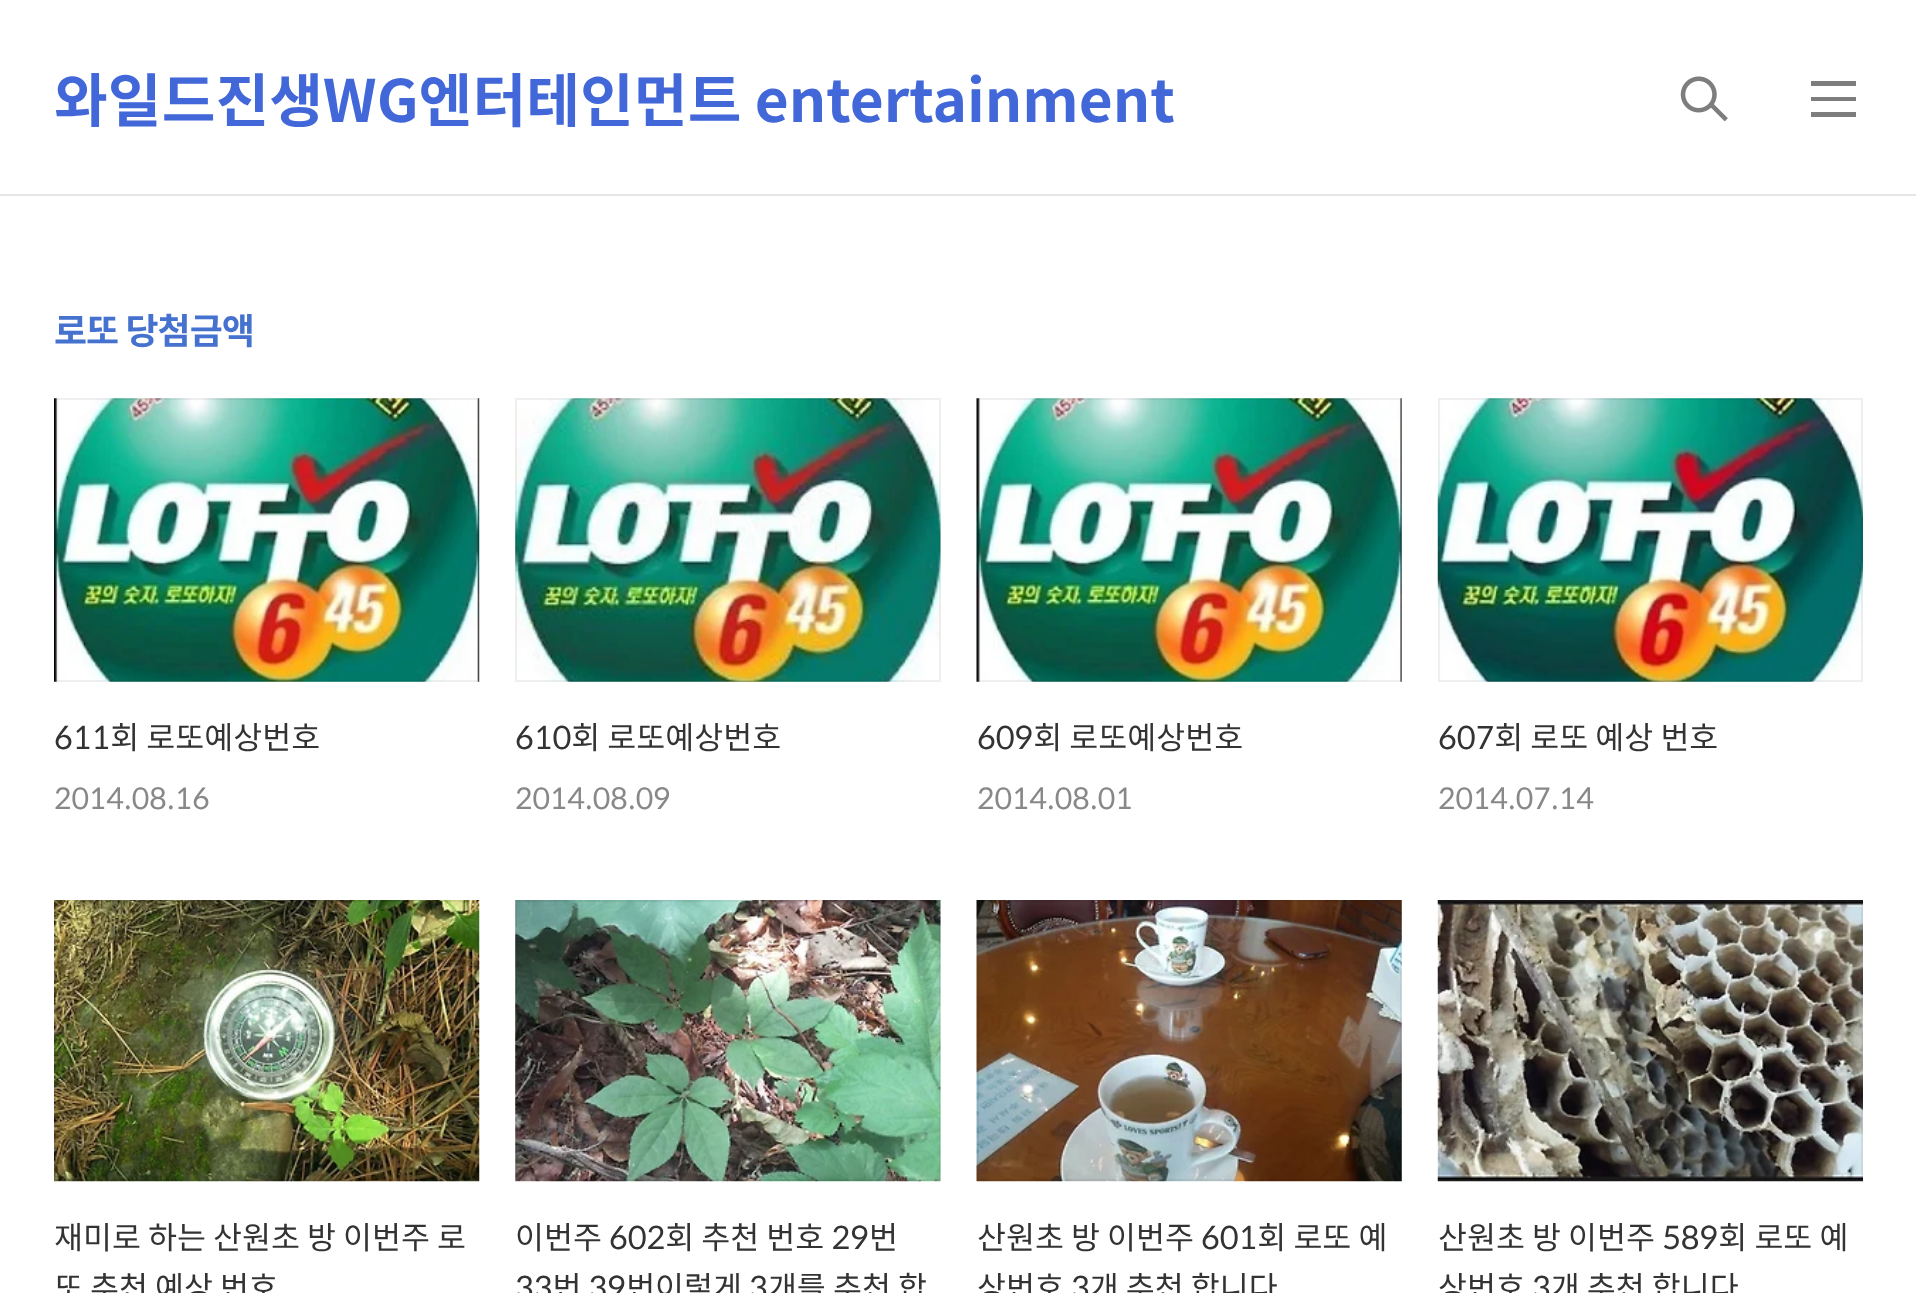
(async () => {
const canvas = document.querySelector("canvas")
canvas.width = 1916
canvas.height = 1293
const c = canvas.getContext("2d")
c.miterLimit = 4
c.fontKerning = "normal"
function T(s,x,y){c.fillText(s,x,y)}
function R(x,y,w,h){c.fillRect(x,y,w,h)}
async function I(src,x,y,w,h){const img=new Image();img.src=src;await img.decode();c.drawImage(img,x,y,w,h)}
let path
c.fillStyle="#fff"
R(0,0,1916,1293)
c.fillStyle="#e6e6e6"
R(0,194,1916,2)
c.font="bold 58.5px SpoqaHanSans"
c.fillStyle="#4167d9"
T("와일드진생WG엔터테인먼트 entertainment",54,122)
await I("1.png",1680,76,48,46)
c.fillStyle="#7d7d7d"
path = new Path2D("M1811 81h45v5h-45zm0 16h45v4h-45zm0 15h45v5h-45z")
c.fill(path,"evenodd")
c.letterSpacing="-1px"
c.font="bold 36px SpoqaHanSans"
c.fillStyle="#4572cf"
T("로또 당첨금액",54,344)
await I("2.png",54,398,426,284)
c.strokeStyle="#0000000f"
c.lineWidth=2
c.strokeRect(55,399,423,282)
c.letterSpacing="0px"
c.font="31.5px SpoqaHanSans"
c.fillStyle="#333"
T("611회 로또예상번호",54,749)
c.font="29.25px SpoqaHanSans"
c.fillStyle="#888"
T("2014.08.16",54,809)
await I("3.png",515,398,426,284)
c.strokeRect(516,399,424,282)
c.font="31.5px SpoqaHanSans"
c.fillStyle="#333"
T("610회 로또예상번호",515,749)
c.font="29.25px SpoqaHanSans"
c.fillStyle="#888"
T("2014.08.09",515,809)
await I("4.png",976,398,426,284)
c.strokeRect(978,399,423,282)
c.font="31.5px SpoqaHanSans"
c.fillStyle="#333"
T("609회 로또예상번호",977,749)
c.font="29.25px SpoqaHanSans"
c.fillStyle="#888"
T("2014.08.01",977,809)
await I("5.png",1437,398,426,284)
c.strokeRect(1439,399,423,282)
c.font="31.5px SpoqaHanSans"
c.fillStyle="#333"
T("607회 로또 예상 번호",1438,749)
c.font="29.25px SpoqaHanSans"
c.fillStyle="#888"
T("2014.07.14",1438,809)
await I("6.png",54,900,426,282)
c.strokeRect(55,901,423,279)
c.font="31.5px SpoqaHanSans"
c.fillStyle="#333"
T("재미로 하는 산원초 방 이번주 로",54,1249)
T("또 추천 예상 번호",54,1299)
await I("7.png",515,900,426,282)
c.strokeRect(516,901,424,279)
T("이번주 602회 추천 번호 29번",515,1249)
T("33번 39번이렇게 3개를 추천 합",515,1299)
await I("8.png",976,900,426,282)
c.strokeRect(978,901,423,279)
T("산원초 방 이번주 601회 로또 예",977,1249)
T("상번호 3개 추천 합니다",977,1299)
await I("9.png",1437,900,426,282)
c.strokeRect(1439,901,423,279)
T("산원초 방 이번주 589회 로또 예",1438,1249)
T("상번호 3개 추천 합니다",1438,1299)
})()
